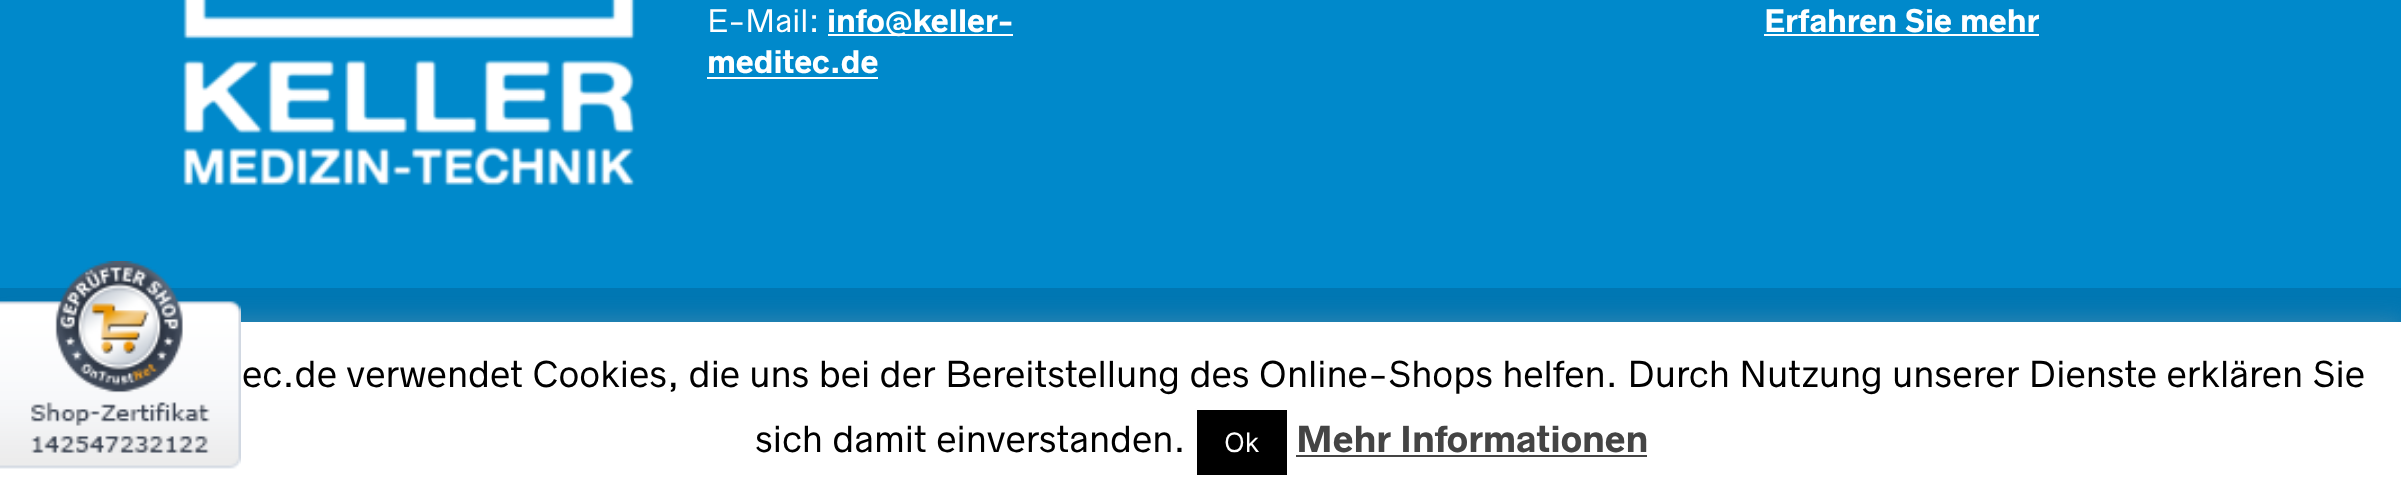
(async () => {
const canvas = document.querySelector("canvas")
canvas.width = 2401
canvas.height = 501
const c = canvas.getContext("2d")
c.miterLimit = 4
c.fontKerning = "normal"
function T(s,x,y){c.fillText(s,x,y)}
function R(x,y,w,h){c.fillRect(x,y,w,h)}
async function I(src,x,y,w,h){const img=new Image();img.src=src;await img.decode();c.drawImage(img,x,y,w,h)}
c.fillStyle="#0089cb"
R(0,0,2401,501)
await I("1.png",183,0,452,186)
c.font="29.25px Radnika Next"
c.fillStyle="#fff"
T("E-Mail:",707,32)
R(828,34,185,2)
c.font="bold 29.25px Radnika Next"
T("info@keller-",827,32)
T("meditec.de",707,73)
R(707,77,171,2)
T("Erfahren Sie mehr",1764,32)
R(1764,34,275,2)
c.fillStyle="#0077b3"
R(0,288,2401,34)
c.fillStyle="#acabab4d"
c.filter="blur(11px)"
c.beginPath()
c.rect(0,320,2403,180)
c.fill()
c.filter="none"
c.fillStyle="#fff"
R(0,322,2401,179)
await I("2.png",0,261,241,208)
c.font="33.75px Radnika Next"
c.fillStyle="#000"
T("ec.de verwendet Cookies, die uns bei der Bereitstellung des Online-Shops helfen. Durch Nutzung unserer Dienste erklären Sie",242,387)
T("sich damit einverstanden.",755,452)
R(1197,410,90,65)
c.font="25px Radnika Next"
c.fillStyle="#fff"
T("Ok",1224,452)
c.font="bold 33.75px Radnika Next"
c.fillStyle="#444"
T("Mehr Informationen",1296,452)
R(1296,455,351,2)
})()
